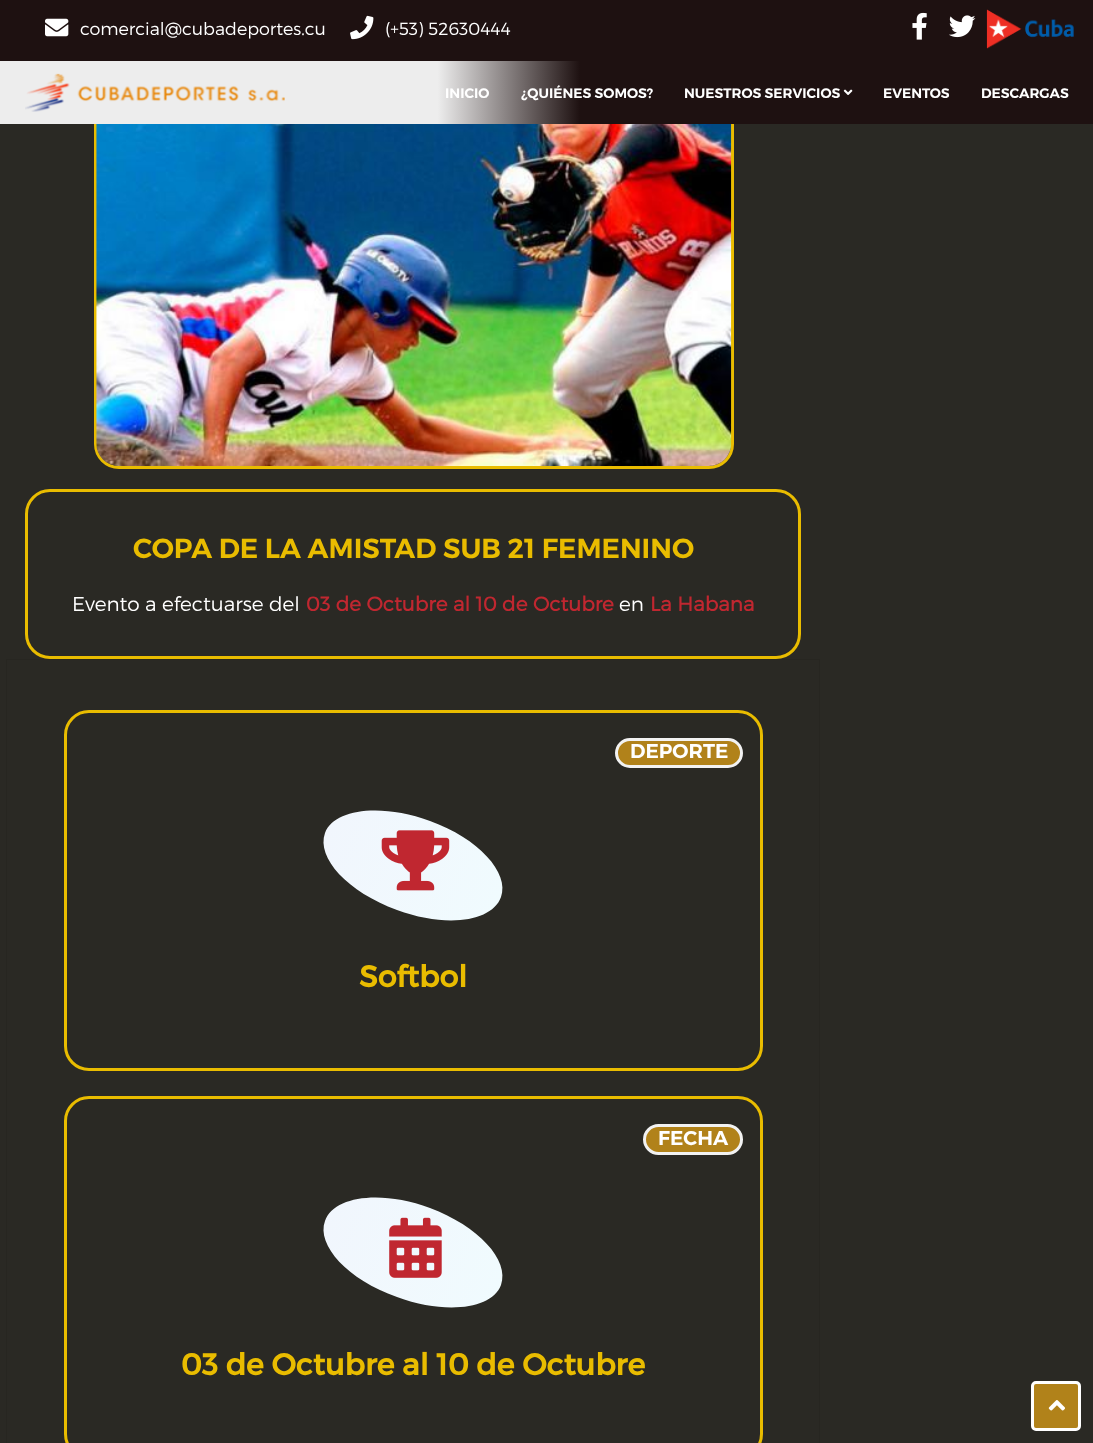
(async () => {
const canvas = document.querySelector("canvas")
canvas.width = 1093
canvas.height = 1443
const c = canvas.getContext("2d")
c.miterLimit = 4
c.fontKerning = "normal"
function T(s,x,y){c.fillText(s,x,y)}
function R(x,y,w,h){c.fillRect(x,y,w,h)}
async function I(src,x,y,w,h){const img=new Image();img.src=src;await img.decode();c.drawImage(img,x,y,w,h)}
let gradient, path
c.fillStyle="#2a2924"
R(0,0,1093,1443)
c.fillStyle="#1e1111"
R(0,0,1093,61)
await I("1.png",45,18,24,19)
c.font="300 17.5px Montserrat"
c.fillStyle="#fff"
T("comercial@cubadeportes.cu",80,35)
await I("2.png",350,15,24,25)
T("(+53) 52630444",385,35)
await I("3.png",912,12,15,28)
await I("4.png",949,15,27,23)
await I("5.png",986,9,88,40)
c.beginPath()
c.roundRect(95.5,71.5,637,396,23.5)
c.strokeStyle="#e9bc00"
c.lineWidth=3
c.stroke()
gradient = c.createLinearGradient(0,93,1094,92)
gradient.addColorStop(.4,"#ededed")
gradient.addColorStop(.53,"#1e1111")
c.fillStyle = gradient
R(0,61,1093,63)
await I("6.png",25,73,260,39)
c.font="600 13.75px Montserrat"
c.fillStyle="#fff"
T("INICIO",445,98)
T("¿QUIÉNES SOMOS?",521,98)
T("NUESTROS SERVICIOS",684,98)
await I("7.png",843,89,10,6)
T("EVENTOS",883,98)
T("DESCARGAS",981,98)
await I("8.png",96,124,636,342)
c.beginPath()
c.roundRect(26.5,490.5,773,167,23.5)
c.stroke()
c.font="600 27.5px Montserrat"
c.fillStyle="#e9bc00"
T("COPA DE LA AMISTAD SUB 21 FEMENINO",133,558)
c.font="300 20px Montserrat"
c.fillStyle="#fff"
T("Evento a efectuarse del",72,611)
c.font="bold 20px Montserrat"
c.fillStyle="#c02730"
T("03 de Octubre al 10 de Octubre",306,611)
c.font="300 20px Montserrat"
c.fillStyle="#fff"
T("en",619,611)
c.font="bold 20px Montserrat"
c.fillStyle="#c02730"
T("La Habana",650,611)
c.strokeStyle="#272621"
c.lineWidth=1
c.strokeRect(6.5,659.5,813,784)
c.beginPath()
c.roundRect(65.5,711.5,696,358,23.5)
c.strokeStyle="#e9bc00"
c.lineWidth=3
c.stroke()
c.fillStyle="#b1821a"
c.beginPath()
c.roundRect(616.5,739.5,125,27,13.5)
c.fill()
c.strokeStyle="#f2f2f2"
c.stroke()
c.font="600 20px Montserrat"
c.fillStyle="#fff"
T("DEPORTE",630,758)
gradient = c.createLinearGradient(325,833,501,897)
gradient.addColorStop(0,"#f1f6fd")
gradient.addColorStop(1,"#f0fbfe")
c.fillStyle = gradient
path = new Path2D("M430 821c48 17 80 52 71 76c-9 25-55 31-104 13c-49-18-81-52-72-77c9-24 56-30 105-12z")
c.fill(path)
await I("9.png",381,830,69,61)
c.font="bold 30px 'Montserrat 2'"
c.fillStyle="#e9bc00"
T("Softbol",359,987)
c.beginPath()
c.roundRect(65.5,1097.5,696,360,23.5)
c.strokeStyle="#e9bc00"
c.stroke()
c.fillStyle="#b1821a"
c.beginPath()
c.roundRect(644.5,1125.5,97,28,14)
c.fill()
c.strokeStyle="#f2f2f2"
c.stroke()
c.font="600 20px Montserrat"
c.fillStyle="#fff"
T("FECHA",658,1145)
gradient = c.createLinearGradient(325,1221,501,1285)
gradient.addColorStop(0,"#f1f6fd")
gradient.addColorStop(1,"#f0fbfe")
c.fillStyle = gradient
path = new Path2D("M430 1208c48 18 80 52 71 77c-9 24-55 30-104 12c-49-17-81-52-72-76c9-25 56-31 105-13z")
c.fill(path)
await I("10.png",389,1217,53,61)
c.font="bold 30px 'Montserrat 2'"
c.fillStyle="#e9bc00"
T("03 de Octubre al 10 de Octubre",181,1375)
c.fillStyle="#b1821a"
c.beginPath()
c.roundRect(1032.5,1382.5,47,47,3.5)
c.fill()
c.strokeStyle="#fff"
c.stroke()
await I("11.png",1048,1400,17,11)
})()
